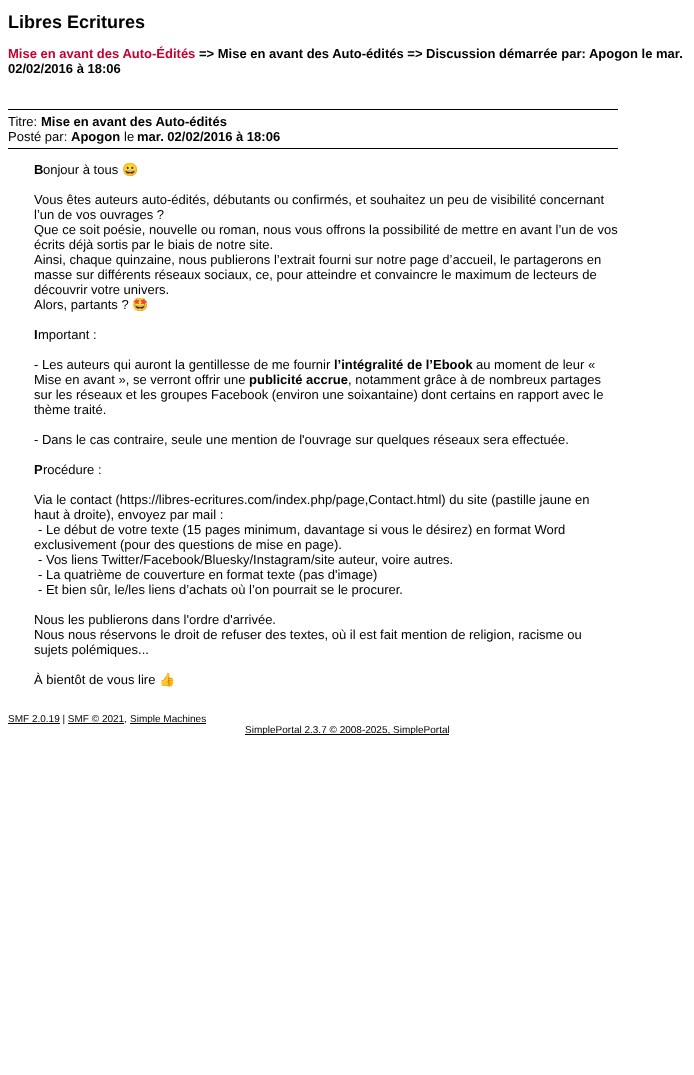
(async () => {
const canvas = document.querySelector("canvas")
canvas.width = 694
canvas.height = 1075
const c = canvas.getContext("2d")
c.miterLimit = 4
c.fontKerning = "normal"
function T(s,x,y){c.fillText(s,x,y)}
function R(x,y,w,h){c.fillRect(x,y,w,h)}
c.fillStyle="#fff"
R(0,0,694,1075)
c.font="bold 18px Liberation Sans"
c.fillStyle="#000"
T("Libres Ecritures",8,28)
c.font="bold 13px Liberation Sans"
c.fillStyle="#c60030"
T("Mise en avant des Auto-Édités",8,58)
c.fillStyle="#000"
T("=> Mise en avant des Auto-édités => Discussion démarrée par: Apogon le mar.",199,58)
T("02/02/2016 à 18:06",8,73)
R(8,109,610,1)
R(8,148,610,1)
c.font="13px Liberation Sans"
T("Titre:",8,126)
c.font="bold 13px Liberation Sans"
T("Mise en avant des Auto-édités",41,126)
c.font="13px Liberation Sans"
T("Posté par:",8,141)
c.font="bold 13px Liberation Sans"
T("Apogon",71,141)
c.font="13px Liberation Sans"
T("le",124,141)
c.font="bold 13px Liberation Sans"
T("mar. 02/02/2016 à 18:06",137,141)
T("B",34,174)
c.font="13px Liberation Sans"
T("onjour à tous",43,174)
c.font="13px Noto Color Emoji"
T("😀",122,174)
c.font="13px Liberation Sans"
T("Vous êtes auteurs auto-édités, débutants ou confirmés, et souhaitez un peu de visibilité concernant",34,204)
T("l’un de vos ouvrages ?",34,219)
T("Que ce soit poésie, nouvelle ou roman, nous vous offrons la possibilité de mettre en avant l’un de vos",34,234)
T("écrits déjà sortis par le biais de notre site.",34,249)
T("Ainsi, chaque quinzaine, nous publierons l’extrait fourni sur notre page d’accueil, le partagerons en",34,264)
T("masse sur différents réseaux sociaux, ce, pour atteindre et convaincre le maximum de lecteurs de",34,279)
T("découvrir votre univers.",34,294)
T("Alors, partants ?",34,309)
c.font="13px Noto Color Emoji"
T("🤩",132,309)
c.font="bold 13px Liberation Sans"
T("I",34,339)
c.font="13px Liberation Sans"
T("mportant :",38,339)
T("- Les auteurs qui auront la gentillesse de me fournir",34,369)
c.font="bold 13px Liberation Sans"
T("l’intégralité de l’Ebook",334,369)
c.font="13px Liberation Sans"
T("au moment de leur «",476,369)
T("Mise en avant », se verront offrir une",34,384)
c.font="bold 13px Liberation Sans"
T("publicité accrue",249,384)
c.font="13px Liberation Sans"
T(", notamment grâce à de nombreux partages",348,384)
T("sur les réseaux et les groupes Facebook (environ une soixantaine) dont certains en rapport avec le",34,399)
T("thème traité.",34,414)
T("- Dans le cas contraire, seule une mention de l'ouvrage sur quelques réseaux sera effectuée.",34,444)
c.font="bold 13px Liberation Sans"
T("P",34,474)
c.font="13px Liberation Sans"
T("rocédure :",43,474)
T("Via le contact (https://libres-ecritures.com/index.php/page,Contact.html) du site (pastille jaune en",34,504)
T("haut à droite), envoyez par mail :",34,519)
T("- Le début de votre texte (15 pages minimum, davantage si vous le désirez) en format Word",38,534)
T("exclusivement (pour des questions de mise en page).",34,549)
T("- Vos liens Twitter/Facebook/Bluesky/Instagram/site auteur, voire autres.",38,564)
T("- La quatrième de couverture en format texte (pas d'image)",38,579)
T("- Et bien sûr, le/les liens d’achats où l’on pourrait se le procurer.",38,594)
T("Nous les publierons dans l'ordre d'arrivée.",34,624)
T("Nous nous réservons le droit de refuser des textes, où il est fait mention de religion, racisme ou",34,639)
T("sujets polémiques...",34,654)
T("À bientôt de vous lire",34,684)
c.font="13px Noto Color Emoji"
T("👍",159,684)
R(8,723,52,1)
c.font="10px Liberation Sans"
T("SMF 2.0.19 | SMF © 2021,",8,722)
R(68,723,56,1)
R(130,723,76,1)
T("Simple Machines",130,722)
R(245,734,204,1)
T("SimplePortal 2.3.7 © 2008-2025, SimplePortal",245,733)
})()
